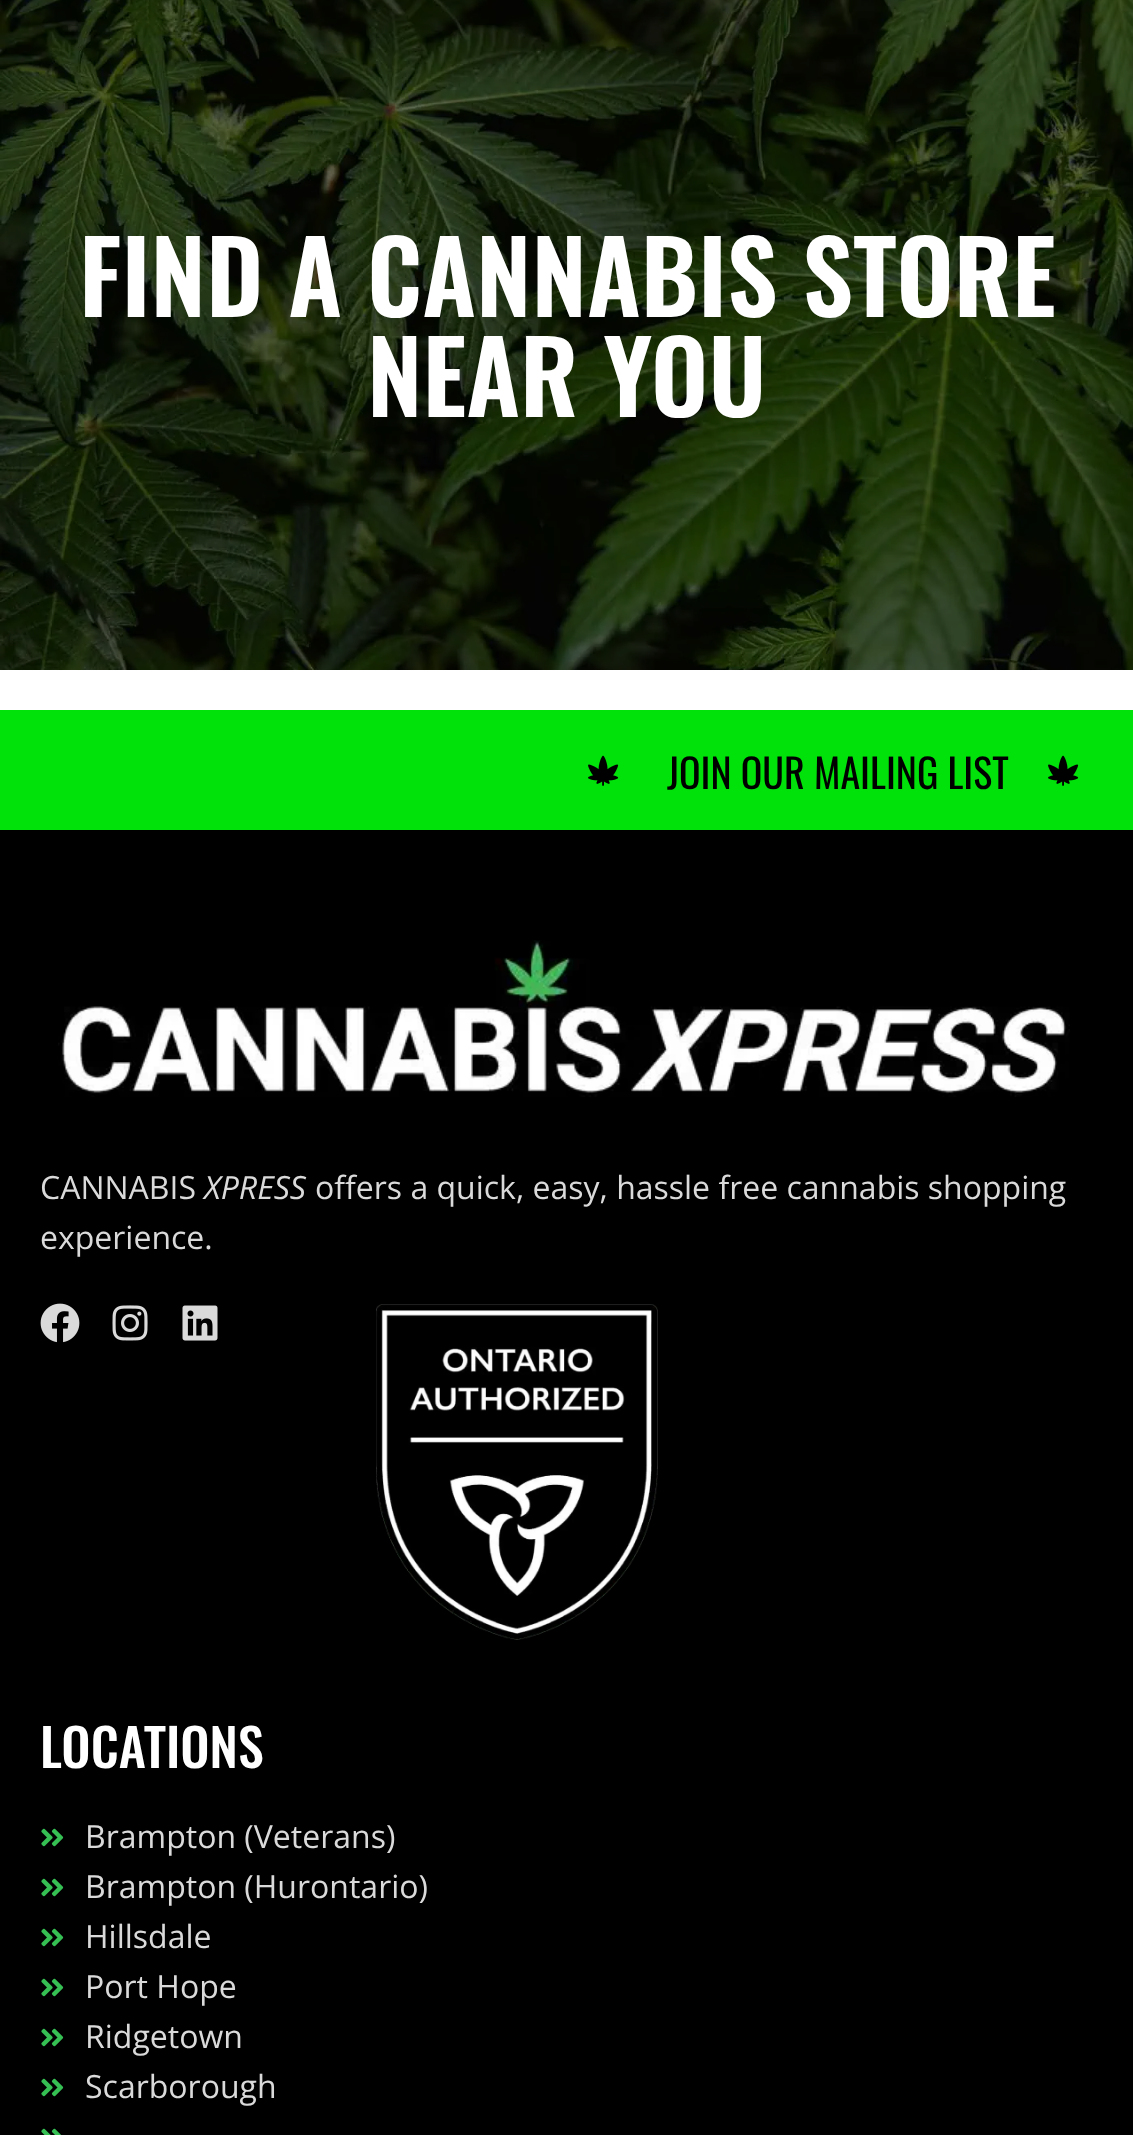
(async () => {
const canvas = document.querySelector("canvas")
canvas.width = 1133
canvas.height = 2135
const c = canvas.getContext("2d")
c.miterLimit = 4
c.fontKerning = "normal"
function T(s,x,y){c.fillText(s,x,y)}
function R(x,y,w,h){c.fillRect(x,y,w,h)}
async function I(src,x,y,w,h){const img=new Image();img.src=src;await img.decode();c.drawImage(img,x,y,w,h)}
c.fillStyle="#fff"
R(0,0,1133,2135)
await I("1.png",0,0,1133,670)
c.font="600 100px Oswald"
T("FIND A CANNABIS STORE",79,317)
T("NEAR YOU",367,417)
c.fillStyle="#00e20a"
R(0,710,1133,120)
await I("2.png",588,755,31,31)
c.font="40px Oswald"
c.fillStyle="#000"
T("JOIN OUR MAILING LIST",667,789)
await I("2.png",1048,755,31,31)
R(0,830,1133,1305)
await I("3.png",58,940,1012,157)
c.font="32px Open Sans"
c.fillStyle="#dadada"
T("CANNABIS",40,1199)
c.font="italic 32px Open Sans"
T("XPRESS",204,1199)
c.font="32px Open Sans"
T("offers a quick, easy, hassle free cannabis shopping",315,1199)
T("experience.",40,1249)
await I("4.png",40,1303,40,40)
await I("5.png",112,1305,36,36)
await I("6.png",182,1305,36,36)
await I("7.png",376,1304,282,336)
c.font="500 52px Oswald"
c.fillStyle="#fff"
T("LOCATIONS",40,1768)
await I("8.png",41,1828,23,19)
c.font="32px Open Sans"
c.fillStyle="#dadada"
T("Brampton (Veterans)",85,1848)
await I("8.png",41,1878,23,19)
T("Brampton (Hurontario)",85,1898)
await I("8.png",41,1928,23,19)
T("Hillsdale",85,1948)
await I("8.png",41,1978,23,19)
T("Port Hope",85,1998)
await I("8.png",41,2028,23,19)
T("Ridgetown",85,2048)
await I("8.png",41,2078,23,19)
T("Scarborough",85,2098)
await I("9.png",41,2128,20,7)
})()
